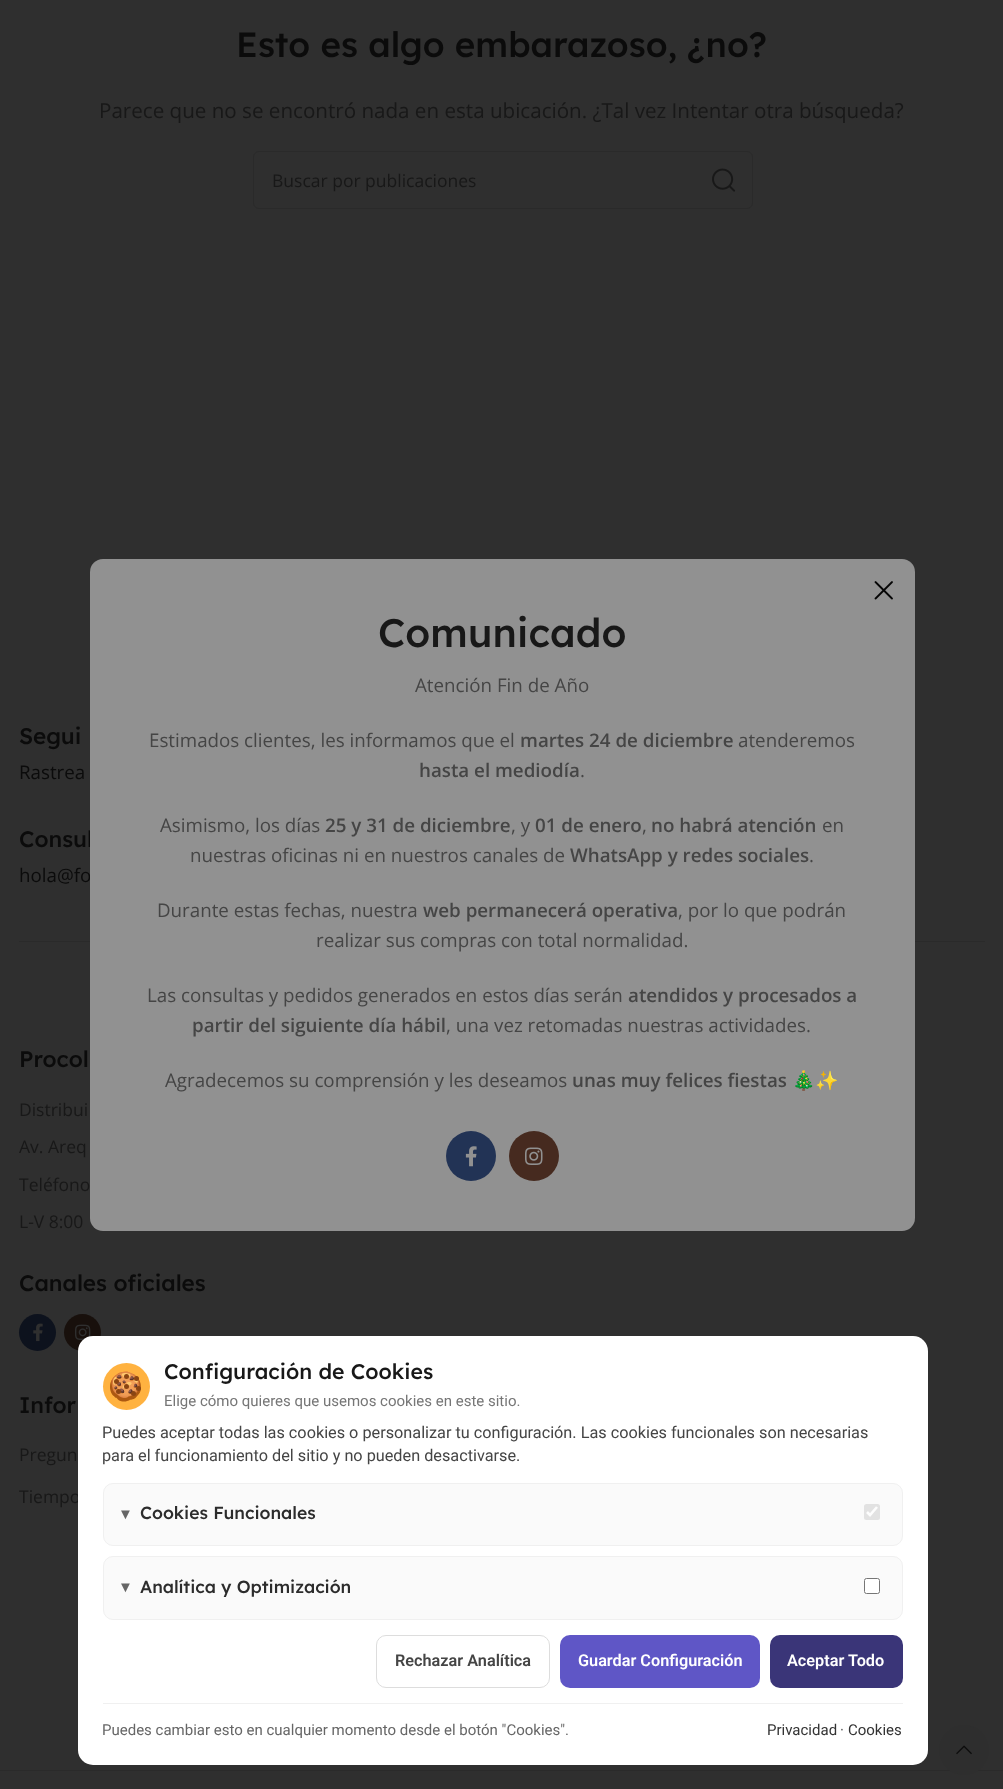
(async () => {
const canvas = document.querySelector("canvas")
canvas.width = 1003
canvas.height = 1789
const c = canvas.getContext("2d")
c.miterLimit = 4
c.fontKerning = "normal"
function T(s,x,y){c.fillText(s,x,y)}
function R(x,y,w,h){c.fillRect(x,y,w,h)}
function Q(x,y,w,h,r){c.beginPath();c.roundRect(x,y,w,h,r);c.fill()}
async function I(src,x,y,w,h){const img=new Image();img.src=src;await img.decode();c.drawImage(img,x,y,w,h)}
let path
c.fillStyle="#2f2f2f"
R(0,0,1003,1789)
c.font="500 35px Lexend Deca"
c.fillStyle="#0b0b0b"
T("Esto es algo embarazoso, ¿no?",236,57)
c.font="20.6px Open Sans"
c.fillStyle="#181818"
T("Parece que no se encontró nada en esta ubicación. ¿Tal vez Intentar otra búsqueda?",99,118)
c.beginPath()
c.roundRect(253.5,151.5,499,57,5.5)
c.strokeStyle="#2a2a2a"
c.stroke()
c.font="17.5px Open Sans"
T("Buscar por publicaciones",272,187)
await I("1.png",712,168,24,24)
c.fillStyle="#2a2a2a"
R(19,941,966,1)
c.font="500 22.5px Lexend Deca"
c.fillStyle="#0b0b0b"
T("Segui",19,744)
c.font="18.75px Open Sans"
T("Rastrea",19,779)
c.font="500 22.5px Lexend Deca"
T("Consul",19,847)
c.font="18.75px Open Sans"
T("hola@fo",19,882)
c.font="500 22.5px Lexend Deca"
T("Procol",19,1067)
c.font="17.5px Open Sans"
c.fillStyle="#181818"
T("Distribui",19,1116)
T("Av. Areq",19,1153)
T("Teléfono",19,1191)
T("L-V 8:00",19,1228)
c.font="500 22.5px Lexend Deca"
c.fillStyle="#0b0b0b"
T("Canales oficiales",19,1291)
c.fillStyle="#0d121d"
c.beginPath()
c.arc(37.5,1332.5,18.5,0,7)
c.fill()
await I("2.png",33,1323,10,19)
c.fillStyle="#18100c"
c.beginPath()
c.arc(82.5,1332.5,18.5,0,7)
c.fill()
await I("3.png",75,1324,16,16)
c.fillStyle="#0b0b0b"
T("Infor",19,1413)
c.font="17.5px Open Sans"
c.fillStyle="#181818"
T("Pregun",19,1461)
T("Tiempo",19,1503)
c.fillStyle="#2a2a2a"
R(0,1770,1003,1)
c.fillStyle="#919191"
Q(90,559,825,672,13)
await I("4.png",874,581,19,19)
c.font="500 40px Lexend Deca"
c.fillStyle="#181818"
T("Comunicado",378,647)
c.font="18.75px Open Sans"
c.fillStyle="#454545"
T("Atención Fin de Año",415,692)
T("Estimados clientes, les informamos que el",149,747)
c.font="600 18.75px Open Sans"
T("martes 24 de diciembre",520,747)
c.font="18.75px Open Sans"
T("atenderemos",738,747)
c.font="600 18.75px Open Sans"
T("hasta el mediodía",419,777)
c.font="18.75px Open Sans"
T(".",580,777)
T("Asimismo, los días",160,832)
c.font="600 18.75px Open Sans"
T("25 y 31 de diciembre",325,832)
c.font="18.75px Open Sans"
T(", y",511,832)
c.font="600 18.75px Open Sans"
T("01 de enero",535,832)
c.font="18.75px Open Sans"
T(",",642,832)
c.font="600 18.75px Open Sans"
T("no habrá atención",651,832)
c.font="18.75px Open Sans"
T("en",822,832)
T("nuestras oficinas ni en nuestros canales de",190,862)
c.font="600 18.75px Open Sans"
T("WhatsApp y redes sociales",570,862)
c.font="18.75px Open Sans"
T(".",809,862)
T("Durante estas fechas, nuestra",157,917)
c.font="600 18.75px Open Sans"
T("web permanecerá operativa",423,917)
c.font="18.75px Open Sans"
T(", por lo que podrán",678,917)
T("realizar sus compras con total normalidad.",316,947)
T("Las consultas y pedidos generados en estos días serán",147,1002)
c.font="600 18.75px Open Sans"
T("atendidos y procesados a",628,1002)
T("partir del siguiente día hábil",192,1032)
c.font="18.75px Open Sans"
T(", una vez retomadas nuestras actividades.",446,1032)
T("Agradecemos su comprensión y les deseamos",165,1087)
c.font="600 18.75px Open Sans"
T("unas muy felices fiestas",572,1087)
c.font="18.75px Noto Color Emoji"
T("🎄✨",792,1087)
c.fillStyle="#235"
c.beginPath()
c.arc(471,1156,25,0,7)
c.fill()
await I("5.png",465,1146,12,21)
c.fillStyle="#462a1f"
c.beginPath()
c.arc(534,1156,25,0,7)
c.fill()
await I("6.png",525,1147,18,18)
c.fillStyle="#fff"
Q(78,1336,850,429,15)
c.fillStyle="#ffb240"
c.beginPath()
c.arc(126.5,1386.5,23.5,0,7)
c.fill()
c.font="28px Noto Color Emoji"
c.fillStyle="#767676"
T("🍪",108,1396)
c.fillStyle="#8b4513"
c.beginPath()
c.arc(138.5,1388.5,2.5,0,7)
c.fill()
c.beginPath()
c.arc(126.5,1376.5,2.5,0,7)
c.fill()
c.beginPath()
c.arc(116.5,1381.5,2.5,0,7)
c.fill()
c.beginPath()
c.arc(133.5,1393.5,2.5,0,7)
c.fill()
c.beginPath()
c.arc(118.5,1391.5,2.5,0,7)
c.fill()
c.beginPath()
c.arc(136.5,1378.5,2.5,0,7)
c.fill()
c.beginPath()
c.arc(126.5,1386.5,2.5,0,7)
c.fill()
c.font="500 21.25px Lexend Deca"
c.fillStyle="#181818"
T("Configuración de Cookies",164,1379)
c.font="15px Roboto"
c.fillStyle="#767676"
T("Elige cómo quieres que usemos cookies en este sitio.",164,1406)
c.font="16.25px Roboto"
c.fillStyle="#454545"
T("Puedes aceptar todas las cookies o personalizar tu configuración. Las cookies funcionales son necesarias",102,1438)
T("para el funcionamiento del sitio y no pueden desactivarse.",102,1461)
c.fillStyle="#fafafa"
c.beginPath()
c.roundRect(103.5,1483.5,799,62,9.5)
c.fill()
c.strokeStyle="#f0f0f0"
c.stroke()
c.font="15px Liberation Sans"
c.fillStyle="#666"
T("▼",118,1519)
c.font="500 17.5px Lexend Deca"
c.fillStyle="#2c2c2c"
T("Cookies Funcionales",140,1519)
c.fillStyle="#e2e2e2"
Q(864,1504,16,16,2.5)
path = new Path2D("M867 1512l3 3l7-8")
c.strokeStyle="#fdfdfd"
c.lineWidth=2.6
c.stroke(path)
c.fillStyle="#fafafa"
c.beginPath()
c.roundRect(103.5,1556.5,799,63,9.5)
c.fill()
c.strokeStyle="#f0f0f0"
c.lineWidth=1
c.stroke()
c.font="15px Liberation Sans"
c.fillStyle="#666"
T("▼",118,1592)
c.font="500 17.5px Lexend Deca"
c.fillStyle="#2c2c2c"
T("Analítica y Optimización",140,1593)
c.fillStyle="#fff"
c.beginPath()
c.roundRect(864.5,1578.5,15,15,2)
c.fill()
c.strokeStyle="#767676"
c.stroke()
c.beginPath()
c.roundRect(376.5,1635.5,173,52,9.5)
c.strokeStyle="#ddd"
c.stroke()
c.font="600 16.25px Roboto"
c.fillStyle="#454545"
T("Rechazar Analítica",395,1666)
c.fillStyle="#5f56c6"
Q(560,1635,200,53,10)
c.fillStyle="#fff"
T("Guardar Configuración",578,1666)
c.fillStyle="#3a3578"
Q(770,1635,133,53,10)
c.fillStyle="#fff"
T("Aceptar Todo",787,1666)
c.fillStyle="#f0f0f0"
R(103,1703,800,1)
c.font="15px Roboto"
c.fillStyle="#666"
T("Puedes cambiar esto en cualquier momento desde el botón \"Cookies\".",102,1735)
c.fillStyle="#333"
T("Privacidad",767,1735)
c.fillStyle="#666"
T("·",840,1735)
c.fillStyle="#333"
T("Cookies",848,1735)
c.fillStyle="#2f2f2fe6"
c.beginPath()
c.arc(964,1750,25,0,7)
c.fill()
await I("7.png",956,1745,16,10)
})()
